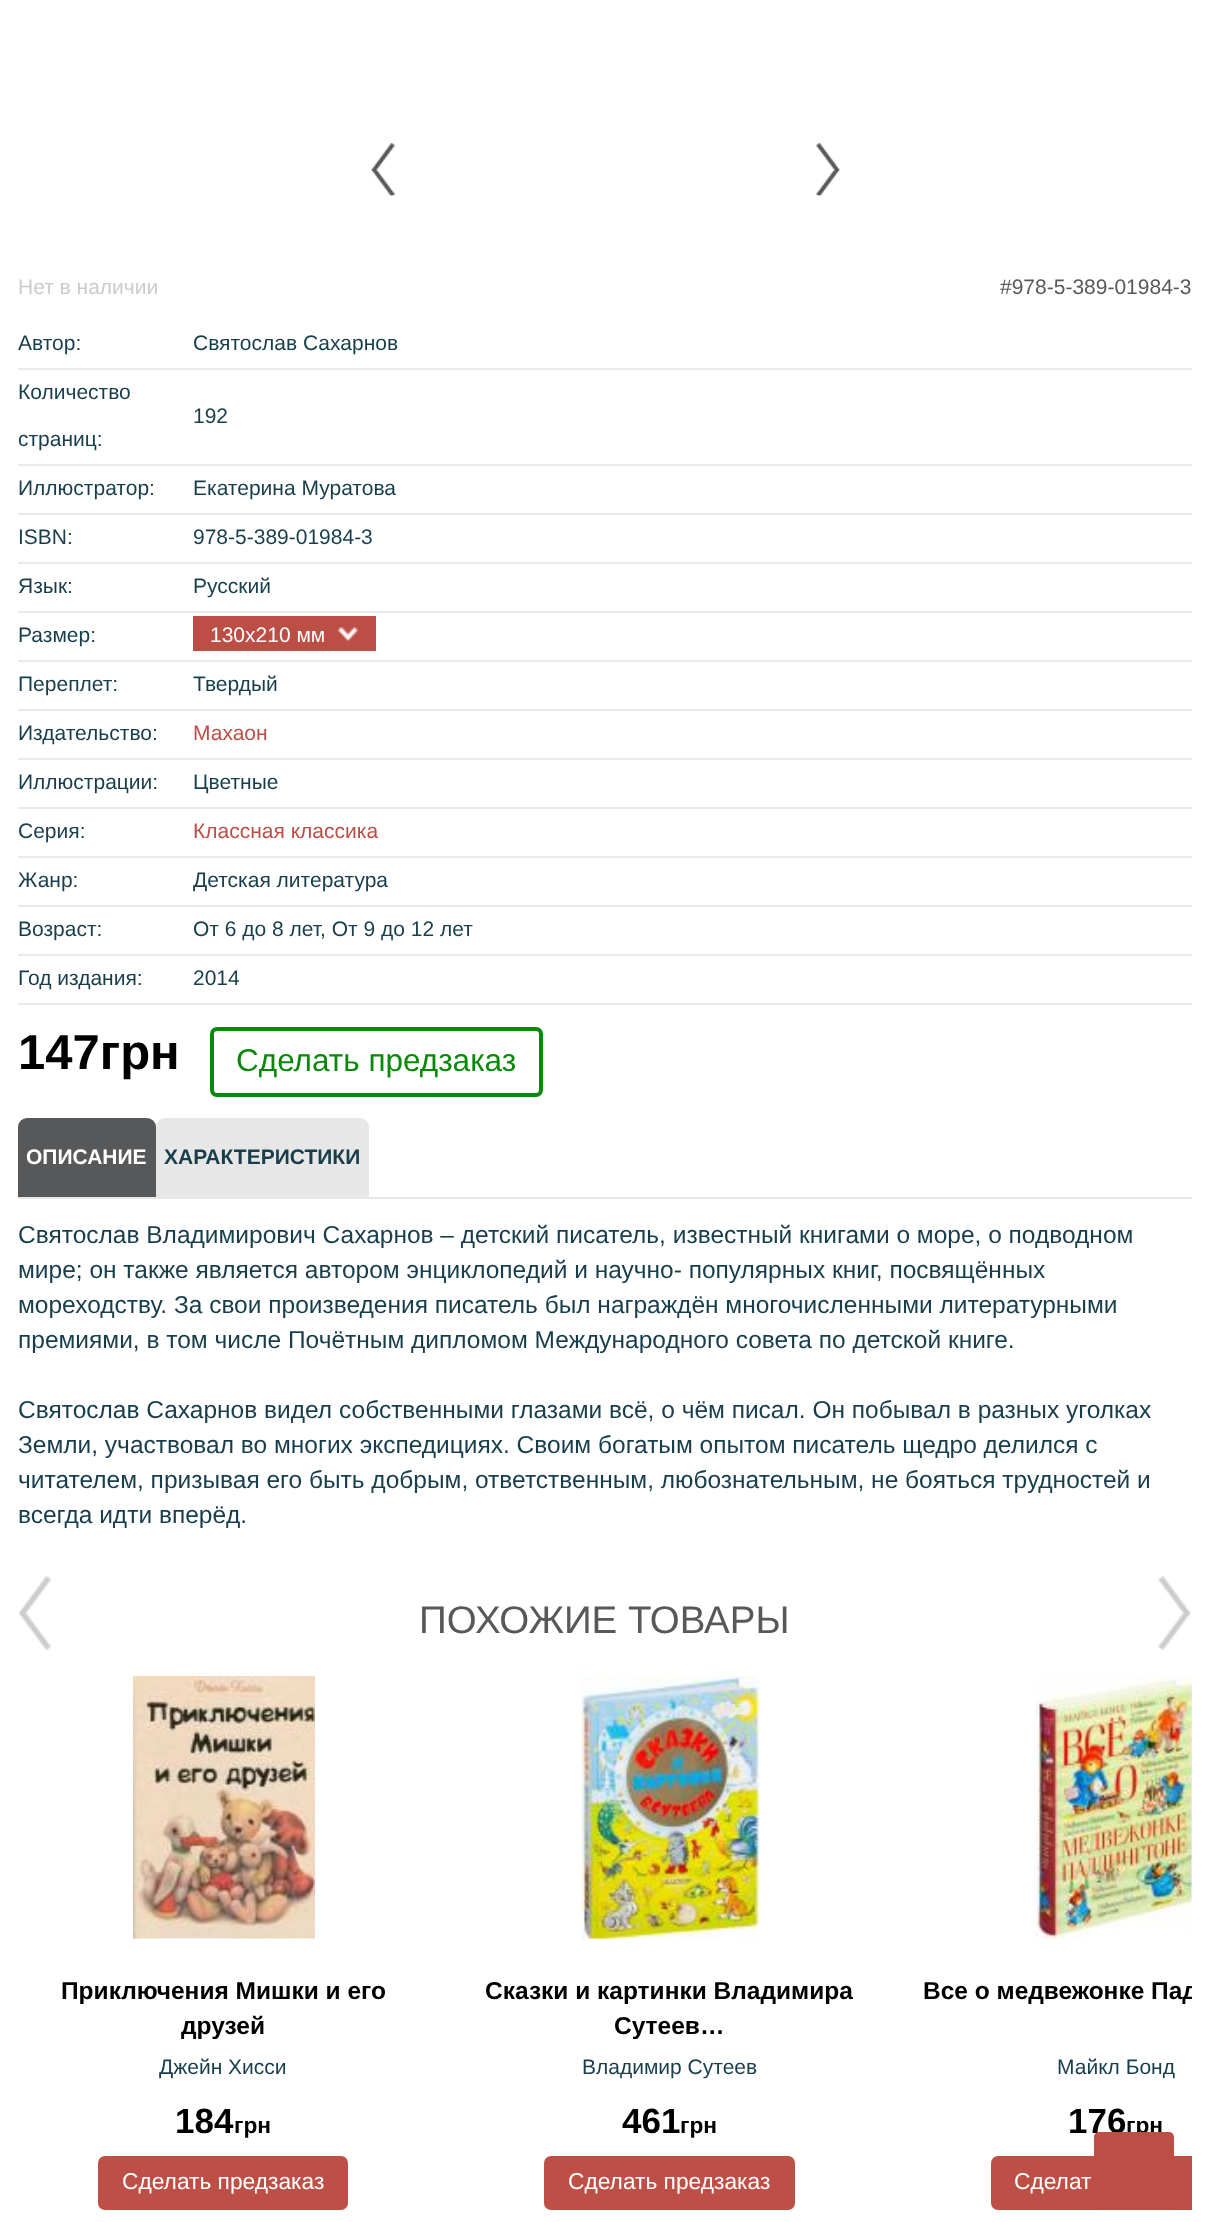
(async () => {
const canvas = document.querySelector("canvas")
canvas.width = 1208
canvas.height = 2222
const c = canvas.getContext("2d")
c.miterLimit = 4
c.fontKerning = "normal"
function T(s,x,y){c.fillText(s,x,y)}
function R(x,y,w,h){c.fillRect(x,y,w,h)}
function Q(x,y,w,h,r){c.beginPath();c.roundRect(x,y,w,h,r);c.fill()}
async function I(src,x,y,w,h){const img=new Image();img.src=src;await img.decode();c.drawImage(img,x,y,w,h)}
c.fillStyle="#fff"
R(0,0,1208,2222)
await I("1.png",371,143,24,53)
await I("2.png",816,143,24,53)
c.font="21px Liberation Sans"
c.fillStyle="#ccc"
T("Нет в наличии",18,294)
c.fillStyle="#57585a"
T("#978-5-389-01984-3",1000,294)
c.fillStyle="#eaeaea"
R(18,368,1174,2)
c.fillStyle="#183e4c"
T("Автор:",18,350)
T("Святослав Сахарнов",193,350)
c.fillStyle="#eaeaea"
R(18,464,1174,2)
c.fillStyle="#183e4c"
T("Количество",18,399)
T("страниц:",18,446)
T("192",193,423)
c.fillStyle="#eaeaea"
R(18,513,1174,2)
c.fillStyle="#183e4c"
T("Иллюстратор:",18,495)
T("Екатерина Муратова",193,495)
c.fillStyle="#eaeaea"
R(18,562,1174,2)
c.fillStyle="#183e4c"
T("ISBN:",18,544)
T("978-5-389-01984-3",193,544)
c.fillStyle="#eaeaea"
R(18,611,1174,2)
c.fillStyle="#183e4c"
T("Язык:",18,593)
T("Русский",193,593)
c.fillStyle="#eaeaea"
R(18,660,1174,2)
c.fillStyle="#183e4c"
T("Размер:",18,642)
c.fillStyle="#bd4e45"
R(193,616,183,35)
c.fillStyle="#fff"
T("130x210 мм",210,642)
await I("3.png",337,626,22,16)
c.fillStyle="#eaeaea"
R(18,709,1174,2)
c.fillStyle="#183e4c"
T("Переплет:",18,691)
T("Твердый",193,691)
c.fillStyle="#eaeaea"
R(18,758,1174,2)
c.fillStyle="#183e4c"
T("Издательство:",18,740)
c.fillStyle="#bd4e45"
T("Махаон",193,740)
c.fillStyle="#eaeaea"
R(18,807,1174,2)
c.fillStyle="#183e4c"
T("Иллюстрации:",18,789)
T("Цветные",193,789)
c.fillStyle="#eaeaea"
R(18,856,1174,2)
c.fillStyle="#183e4c"
T("Серия:",18,838)
c.fillStyle="#bd4e45"
T("Классная классика",193,838)
c.fillStyle="#eaeaea"
R(18,905,1174,2)
c.fillStyle="#183e4c"
T("Жанр:",18,887)
T("Детская литература",193,887)
c.fillStyle="#eaeaea"
R(18,954,1174,2)
c.fillStyle="#183e4c"
T("Возраст:",18,936)
T("От 6 до 8 лет, От 9 до 12 лет",193,936)
c.fillStyle="#eaeaea"
R(18,1003,1174,2)
c.fillStyle="#183e4c"
T("Год издания:",18,985)
T("2014",193,985)
c.font="bold 49px Liberation Sans"
c.fillStyle="#000"
T("147грн",18,1069)
c.beginPath()
c.roundRect(212,1029,329,66,5)
c.strokeStyle="#0a880a"
c.lineWidth=4
c.stroke()
c.font="31.5px Liberation Sans"
c.fillStyle="#0a880a"
T("Сделать предзаказ",236,1071)
c.fillStyle="#e7e7e7"
R(18,1197,1174,2)
c.fillStyle="#57585a"
c.beginPath()
c.roundRect(18,1118,138,79,[9,9,0,0])
c.fill()
c.font="bold 21px Liberation Sans"
c.fillStyle="#fff"
T("ОПИСАНИЕ",26,1164)
c.fillStyle="#e7e7e7"
c.beginPath()
c.roundRect(156,1118,213,79,[9,9,0,0])
c.fill()
c.fillStyle="#183e4c"
T("ХАРАКТЕРИСТИКИ",164,1164)
c.font="24.5px Liberation Sans"
T("Святослав Владимирович Сахарнов – детский писатель, известный книгами о море, о подводном",18,1243)
T("мире; он также является автором энциклопедий и научно- популярных книг, посвящённых",18,1278)
T("мореходству. За свои произведения писатель был награждён многочисленными литературными",18,1313)
T("премиями, в том числе Почётным дипломом Международного совета по детской книге.",18,1348)
T("Святослав Сахарнов видел собственными глазами всё, о чём писал. Он побывал в разных уголках",18,1418)
T("Земли, участвовал во многих экспедициях. Своим богатым опытом писатель щедро делился с",18,1453)
T("читателем, призывая его быть добрым, ответственным, любознательным, не бояться трудностей и",18,1488)
T("всегда идти вперёд.",18,1523)
c.font="38.5px Liberation Sans"
c.fillStyle="#57585a"
T("ПОХОЖИЕ ТОВАРЫ",419,1633)
await I("4.png",19,1576,33,74)
await I("5.png",1158,1576,33,74)
await I("6.png",133,1676,182,263)
c.font="bold 24.5px Liberation Sans"
c.fillStyle="#000"
T("Приключения Мишки и его",61,1999)
T("друзей",181,2034)
c.font="21px Liberation Sans"
c.fillStyle="#183e4c"
T("Джейн Хисси",159,2074)
c.font="bold 35px Liberation Sans"
c.fillStyle="#000"
T("184",175,2133)
c.font="bold 22.75px Liberation Sans"
T("грн",234,2133)
c.fillStyle="#be4f46"
Q(98,2156,250,54,7)
c.font="22.75px Liberation Sans"
c.fillStyle="#fff"
T("Сделать предзаказ",122,2189)
await I("7.png",581,1676,179,263)
c.font="bold 24.5px Liberation Sans"
c.fillStyle="#000"
T("Сказки и картинки Владимира",485,1999)
T("Сутеев…",614,2034)
c.font="21px Liberation Sans"
c.fillStyle="#183e4c"
T("Владимир Сутеев",582,2074)
c.font="bold 35px Liberation Sans"
c.fillStyle="#000"
T("461",622,2133)
c.font="bold 22.75px Liberation Sans"
T("грн",680,2133)
c.fillStyle="#be4f46"
Q(544,2156,251,54,7)
c.font="22.75px Liberation Sans"
c.fillStyle="#fff"
T("Сделать предзаказ",568,2189)
await I("8.png",1036,1676,156,263)
c.save()
c.beginPath()
c.rect(922,1972,270,70)
c.clip()
c.font="bold 24.5px Liberation Sans"
c.fillStyle="#000"
T("Все о медвежонке Пад",923,1999)
c.restore()
c.font="21px Liberation Sans"
c.fillStyle="#183e4c"
T("Майкл Бонд",1057,2074)
c.font="bold 35px Liberation Sans"
c.fillStyle="#000"
T("176",1068,2133)
c.font="bold 22.75px Liberation Sans"
T("грн",1126,2133)
c.fillStyle="#be4f46"
c.beginPath()
c.roundRect(991,2156,201,54,[7,0,0,7])
c.fill()
c.font="22.75px Liberation Sans"
c.fillStyle="#fff"
T("Сделат",1014,2189)
c.fillStyle="#bd4e45"
Q(1094,2132,80,77,5)
})()
